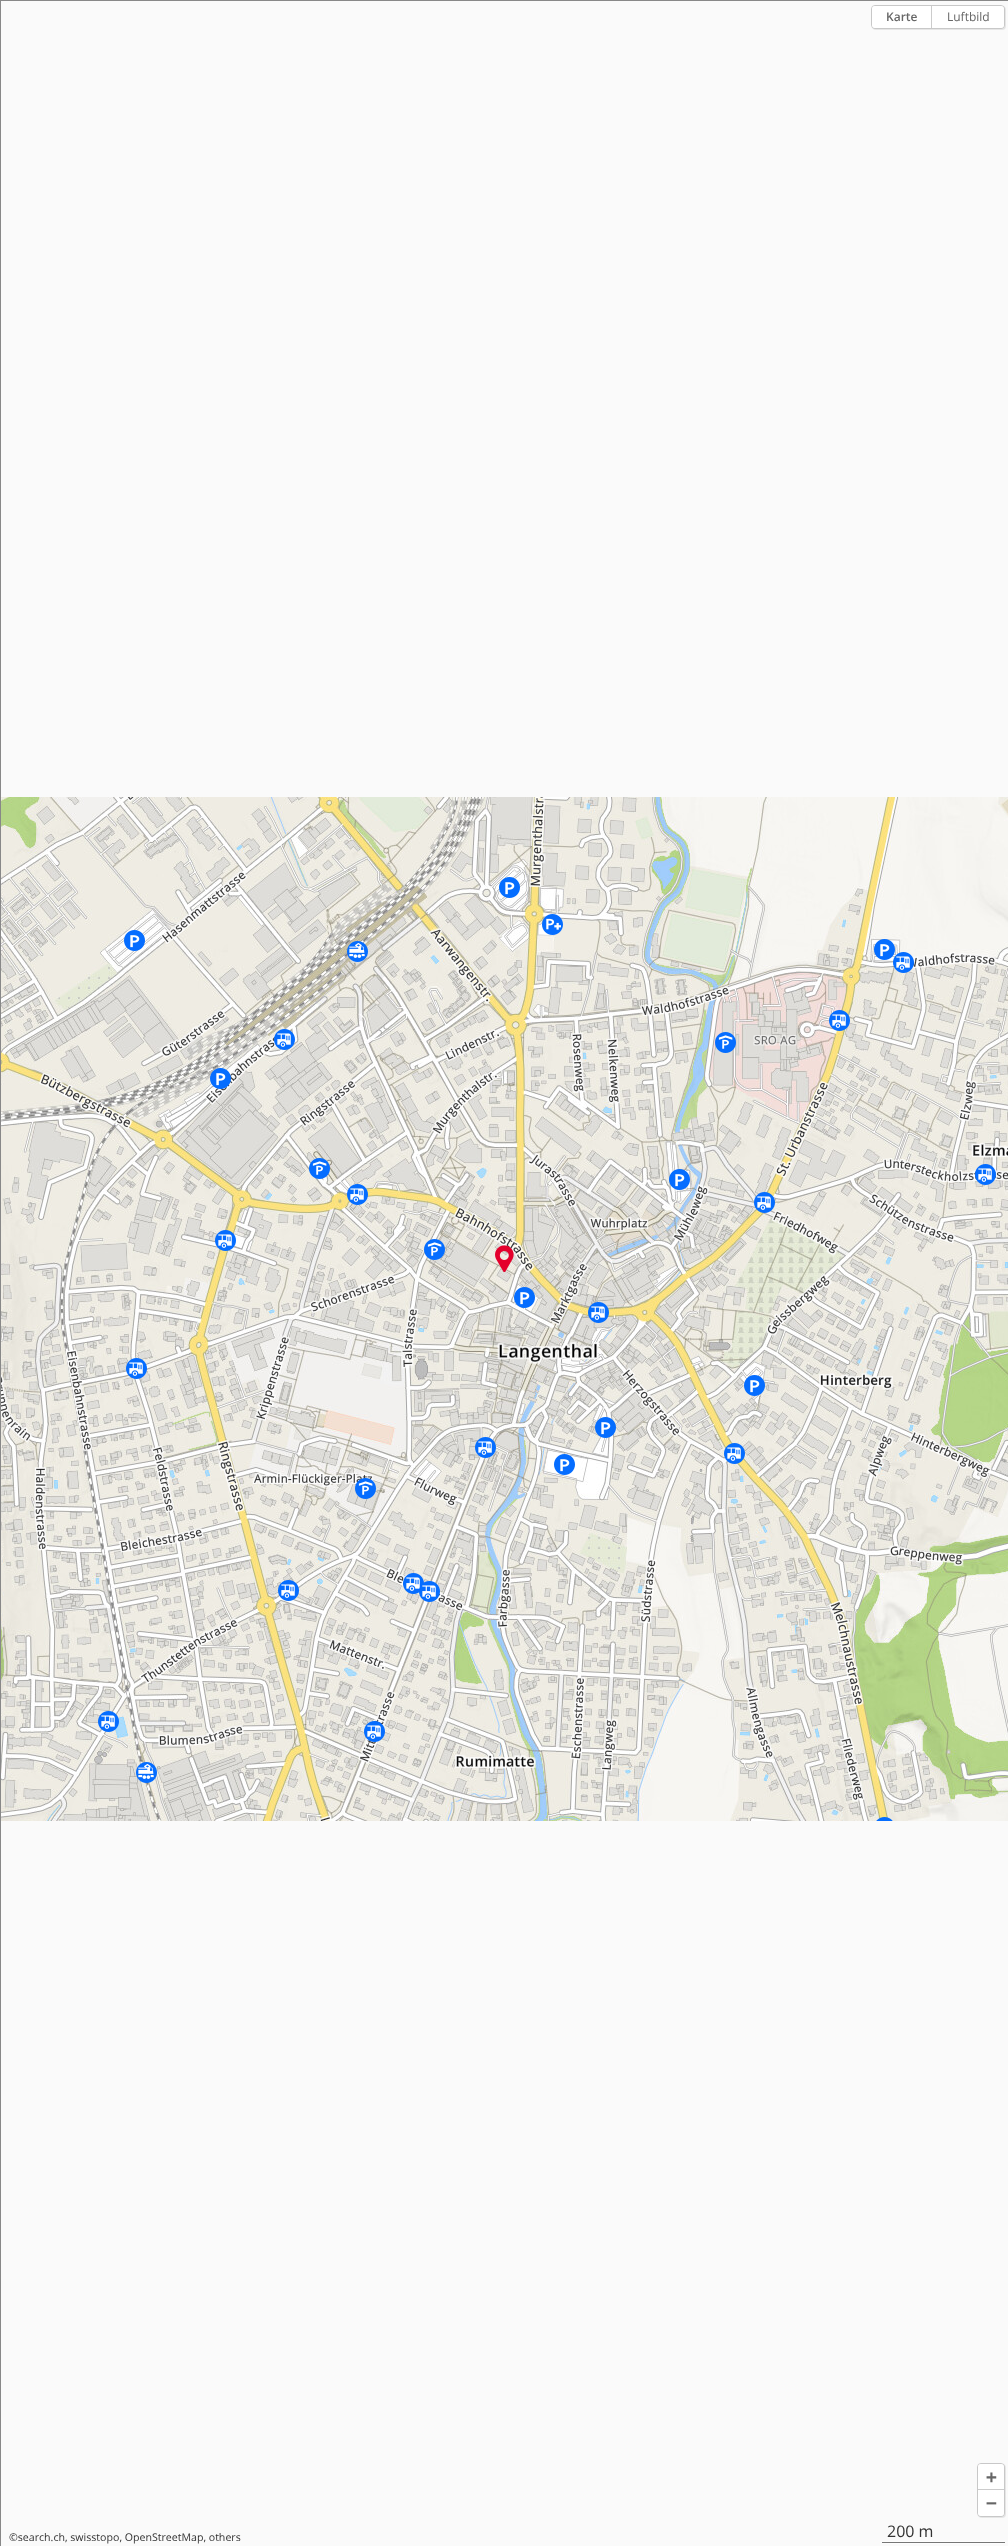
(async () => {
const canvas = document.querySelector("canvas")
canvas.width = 1008
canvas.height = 2546
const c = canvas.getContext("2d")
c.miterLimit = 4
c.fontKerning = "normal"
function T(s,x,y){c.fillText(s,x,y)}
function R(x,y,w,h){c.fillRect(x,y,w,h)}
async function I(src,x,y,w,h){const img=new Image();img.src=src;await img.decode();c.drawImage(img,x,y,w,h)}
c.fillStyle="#fafafa"
R(0,0,1008,2546)
c.strokeStyle="#888"
c.strokeRect(.5,.5,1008,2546)
c.fillStyle="#00000014"
c.filter="blur(0.5px)"
c.beginPath()
c.roundRect(872,6,134,24,4)
c.fill()
c.filter="none"
c.beginPath()
c.roundRect(871.5,5.5,133,23,3.5)
c.strokeStyle="#c8c8c8"
c.stroke()
c.fillStyle="#fff"
c.beginPath()
c.roundRect(872,6,60,22,[3,0,0,3])
c.fill()
c.fillStyle="#ccc"
R(931,6,1,22)
c.font="600 12px Open Sans"
c.fillStyle="#666"
T("Karte",886,21)
c.fillStyle="#fff"
c.beginPath()
c.roundRect(932,6,72,22,[0,3,3,0])
c.fill()
c.font="12px Open Sans"
c.fillStyle="#666"
T("Luftbild",947,21)
c.font="10.6px Open Sans"
c.fillStyle="#333"
T("©search.ch, swisstopo, OpenStreetMap, others",9,2541)
c.fillStyle="#00000014"
c.filter="blur(0.5px)"
c.beginPath()
c.roundRect(978,2464,28,54,4)
c.fill()
c.filter="none"
c.beginPath()
c.roundRect(977.5,2463.5,27,53,3.5)
c.stroke()
c.fillStyle="#fff"
c.beginPath()
c.roundRect(978,2464,26,26,[3,3,0,0])
c.fill()
c.fillStyle="#ccc"
R(978,2489,26,1)
c.font="bold 18px DejaVu Sans Mono"
c.fillStyle="#666"
T("+",986,2483)
c.fillStyle="#fff"
c.beginPath()
c.roundRect(978,2490,26,26,[0,0,3,3])
c.fill()
c.fillStyle="#666"
T("−",986,2509)
c.fillStyle="#fdfdfd"
R(882,2543,123,1)
R(882,2541,123,1)
c.fillStyle="#777"
R(882,2542,123,1)
c.font="16px Open Sans"
c.fillStyle="#333"
T("200 m",887,2537)
await I("1.png",1,797,59,512)
await I("2.png",60,797,512,512)
await I("3.png",572,797,436,512)
await I("4.png",1,1309,59,512)
await I("5.png",60,1309,512,512)
await I("6.png",572,1309,436,512)
await I("7.png",39,1072,21,22)
await I("8.png",60,797,512,512)
await I("9.png",572,939,436,370)
await I("10.png",1,1374,46,177)
await I("11.png",65,1309,507,512)
await I("12.png",572,1309,420,512)
await I("13.png",495,1245,19,28)
})()
